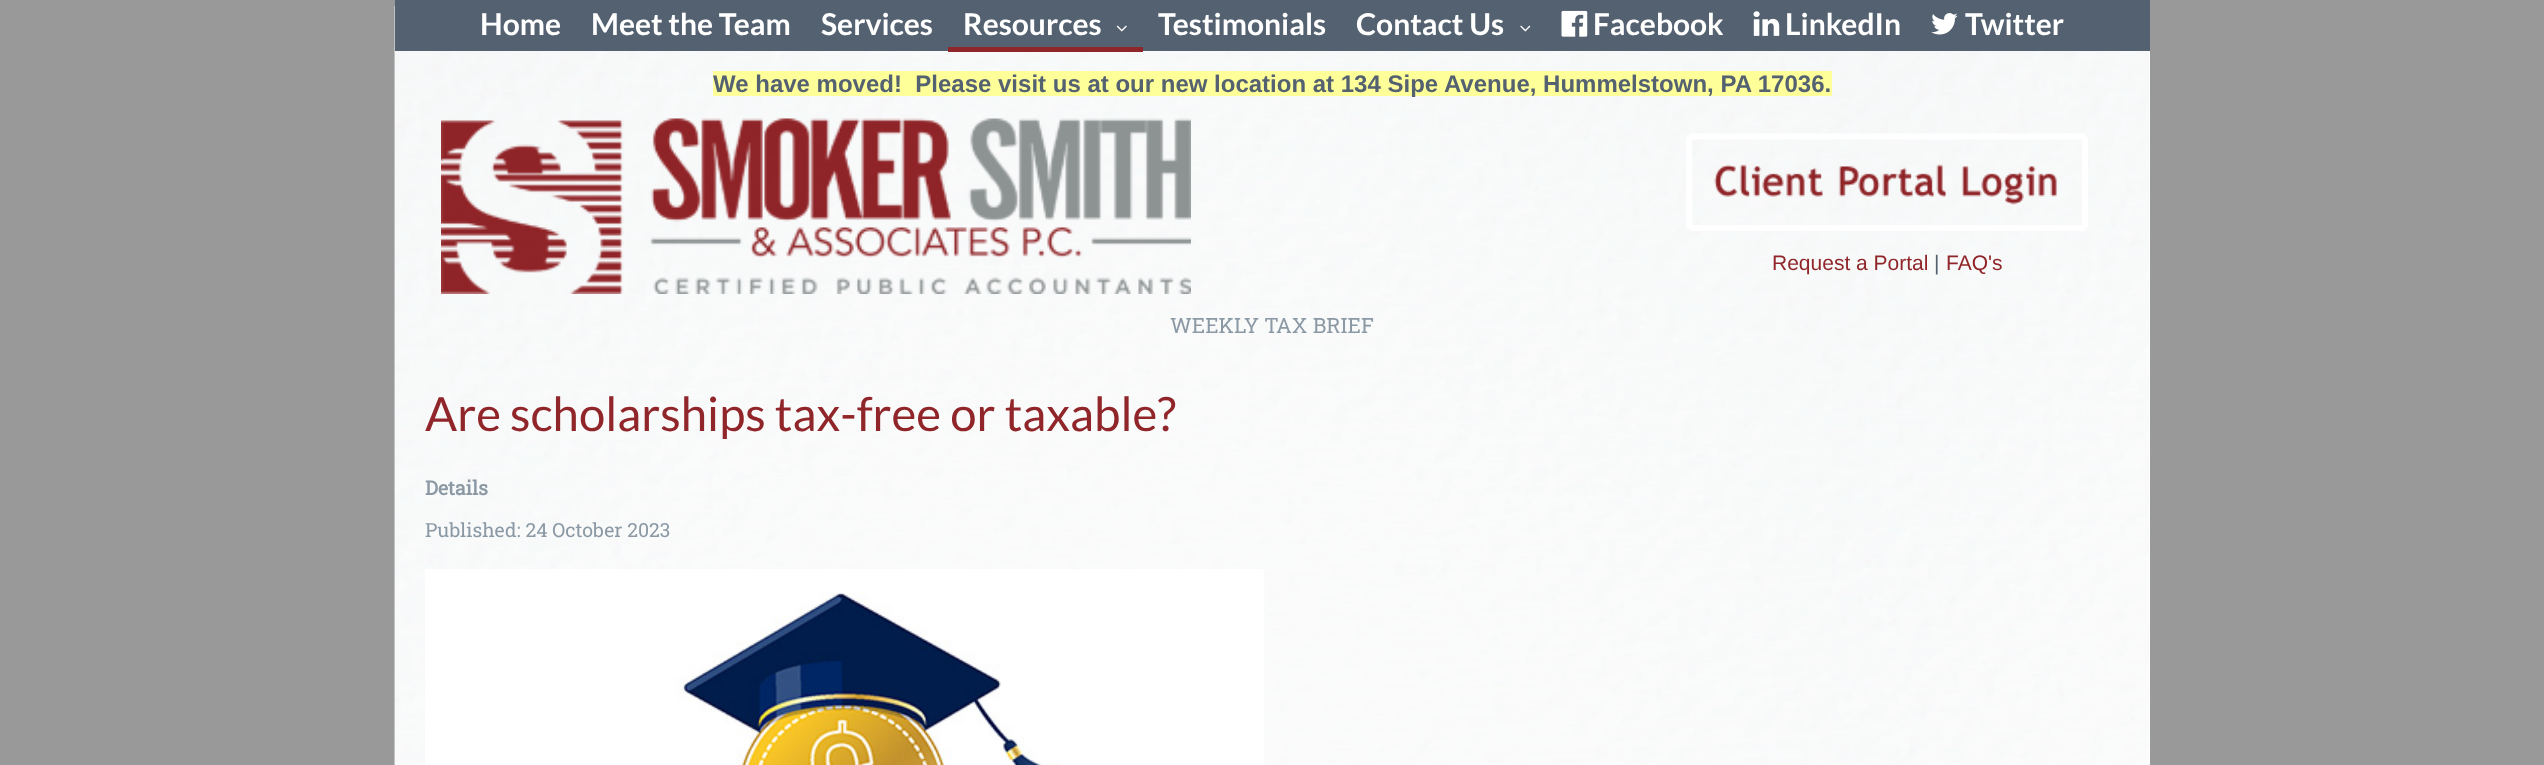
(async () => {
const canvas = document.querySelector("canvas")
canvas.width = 2544
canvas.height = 765
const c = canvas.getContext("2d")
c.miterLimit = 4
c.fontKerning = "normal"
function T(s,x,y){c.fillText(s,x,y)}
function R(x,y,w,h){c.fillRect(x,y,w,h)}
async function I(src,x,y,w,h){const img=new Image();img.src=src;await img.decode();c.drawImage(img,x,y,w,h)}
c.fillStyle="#999"
R(0,0,2544,765)
c.fillStyle="#fff"
R(395,51,1755,714)
await I("6.png",394,6,1755,759)
c.fillStyle="#546170"
R(395,0,1755,51)
c.font="bold 30px Lato"
c.fillStyle="#fff"
T("Home",480,35)
T("Meet the Team",591,35)
T("Services",821,35)
c.fillStyle="#90262a"
R(948,47,195,5)
c.fillStyle="#fff"
T("Resources",963,35)
await I("1.png",1116,25,11,7)
T("Testimonials",1158,35)
T("Contact Us",1356,35)
await I("2.png",1520,25,11,7)
await I("3.png",1561,10,27,27)
T("Facebook",1593,35)
await I("4.png",1753,11,27,25)
T("LinkedIn",1785,35)
await I("5.png",1931,13,27,22)
T("Twitter",1965,35)
c.fillStyle="#ff9"
R(713,71,1119,25)
c.font="bold 24px Liberation Sans"
c.fillStyle="#546170"
T("We have moved!  Please visit us at our new location at 134 Sipe Avenue, Hummelstown, PA 17036.",713,92)
await I("7.png",441,118,750,176)
await I("8.png",1686,133,402,98)
c.font="21px Liberation Sans"
c.fillStyle="#90262a"
T("Request a Portal",1772,270)
c.fillStyle="#546170"
T("|",1934,270)
c.fillStyle="#90262a"
T("FAQ's",1946,270)
c.font="21px Roboto Slab"
c.fillStyle="#8b99a5"
T("WEEKLY TAX BRIEF",1170,333)
c.font="47.25px Lato"
c.fillStyle="#90262a"
T("Are scholarships tax-free or taxable?",425,431)
c.font="bold 19.5px Roboto Slab"
c.fillStyle="#8b99a5"
T("Details",425,495)
c.font="19.5px Roboto Slab"
T("Published: 24 October 2023",425,537)
await I("9.png",425,569,839,196)
})()
